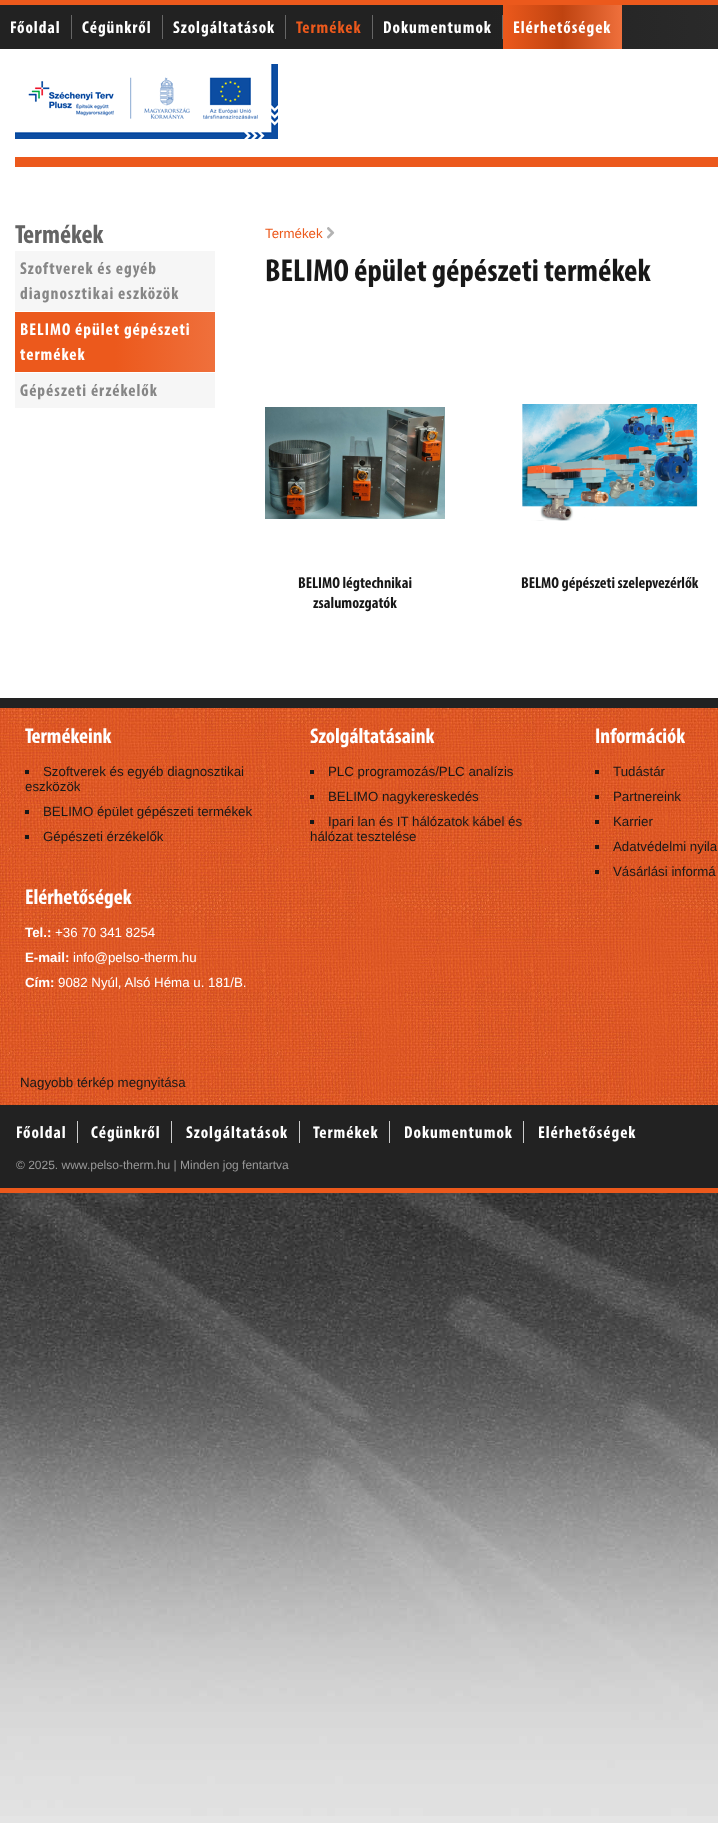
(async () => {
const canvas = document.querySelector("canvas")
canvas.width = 718
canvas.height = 1823
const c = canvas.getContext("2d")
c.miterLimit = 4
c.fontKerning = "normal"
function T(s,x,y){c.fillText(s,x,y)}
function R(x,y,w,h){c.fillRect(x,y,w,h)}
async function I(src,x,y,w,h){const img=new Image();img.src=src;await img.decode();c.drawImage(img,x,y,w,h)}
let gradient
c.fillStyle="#e5e5e5"
R(0,0,718,1823)
await I("1.png",0,1193,718,623)
c.fillStyle="#fff"
R(0,49,718,649)
c.fillStyle="#ec591c"
R(0,0,718,5)
gradient = c.createLinearGradient(0,27,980,27)
gradient.addColorStop(0,"#222")
gradient.addColorStop(.5,"#222")
gradient.addColorStop(1,"#333")
c.fillStyle = gradient
R(0,5,718,44)
c.fillStyle="#666"
R(71,15,1,24)
c.letterSpacing="1px"
c.font="bold 17.25px Myriad"
c.fillStyle="#fff"
T("Főoldal",10,33)
c.fillStyle="#666"
R(162,15,1,24)
c.fillStyle="#fff"
T("Cégünkről",82,33)
c.fillStyle="#666"
R(285,15,1,24)
c.fillStyle="#fff"
T("Szolgáltatások",173,33)
c.fillStyle="#666"
R(372,15,1,24)
c.fillStyle="#ec591c"
T("Termékek",296,33)
c.fillStyle="#666"
R(502,15,1,24)
c.fillStyle="#fff"
T("Dokumentumok",383,33)
gradient = c.createLinearGradient(503,27,622,27)
gradient.addColorStop(0,"#ec591c")
gradient.addColorStop(.5,"#bf4310")
gradient.addColorStop(1,"#ef703c")
c.fillStyle = gradient
R(503,5,119,44)
c.fillStyle="#fff"
T("Elérhetőségek",513,33)
await I("2.png",15,64,263,75)
c.fillStyle="#ec591c"
R(15,157,703,10)
c.letterSpacing="0px"
c.font="bold 26.5px Myriad"
c.fillStyle="#646464"
T("Termékek",15,243)
c.fillStyle="#f6f6f6"
R(15,251,200,157)
c.letterSpacing="1px"
c.font="bold 17.25px Myriad"
c.fillStyle="#868686"
T("Szoftverek és egyéb",20,274)
T("diagnosztikai eszközök",20,299)
c.fillStyle="#fff"
R(15,311,200,1)
gradient = c.createLinearGradient(15,342,215,342)
gradient.addColorStop(0,"#ec591c")
gradient.addColorStop(.5,"#ec591c")
gradient.addColorStop(1,"#ef703c")
c.fillStyle = gradient
R(15,312,200,60)
c.fillStyle="#fff"
T("BELIMO épület gépészeti",20,335)
T("termékek",20,360)
R(15,372,200,1)
c.fillStyle="#868686"
T("Gépészeti érzékelők",20,396)
c.letterSpacing="0px"
c.font="13.3px Liberation Sans"
c.fillStyle="#ec591c"
T("Termékek",265,238)
await I("3.png",327,227,8,12)
c.font="bold 32px Myriad"
c.fillStyle="#181818"
T("BELIMO épület gépészeti termékek",265,281)
await I("4.png",265,407,180,112)
c.font="bold 16px Myriad"
T("BELIMO légtechnikai",298,588)
T("zsalumozgatók",313,608)
await I("5.png",522,404,176,117)
T("BELMO gépészeti szelepvezérlők",521,588)
await I("6.png",0,708,718,397)
c.fillStyle="#222"
R(0,698,718,10)
c.font="bold 21.5px Myriad"
c.fillStyle="#fff"
T("Termékeink",25,743)
c.fillStyle="#181818"
R(25,770,4,4)
c.font="13.3px Liberation Sans"
T("Szoftverek és egyéb diagnosztikai",43,776)
T("eszközök",25,791)
R(25,810,4,4)
T("BELIMO épület gépészeti termékek",43,816)
R(25,835,4,4)
T("Gépészeti érzékelők",43,841)
c.font="bold 21.5px Myriad"
c.fillStyle="#fff"
T("Szolgáltatásaink",310,743)
c.fillStyle="#181818"
R(310,770,4,4)
c.font="13.3px Liberation Sans"
T("PLC programozás/PLC analízis",328,776)
R(310,795,4,4)
T("BELIMO nagykereskedés",328,801)
R(310,820,4,4)
T("Ipari lan és IT hálózatok kábel és",328,826)
T("hálózat tesztelése",310,841)
c.font="bold 21.5px Myriad"
c.fillStyle="#fff"
T("Információk",595,743)
c.fillStyle="#181818"
R(595,770,4,4)
c.font="13.3px Liberation Sans"
T("Tudástár",613,776)
R(595,795,4,4)
T("Partnereink",613,801)
R(595,820,4,4)
T("Karrier",613,826)
R(595,845,4,4)
T("Adatvédelmi nyila",613,851)
R(595,870,4,4)
T("Vásárlási informá",613,876)
c.font="bold 21.5px Myriad"
c.fillStyle="#fff"
T("Elérhetőségek",25,904)
c.font="bold 13.3px Liberation Sans"
T("Tel.:",25,937)
c.font="13.3px Liberation Sans"
T("+36 70 341 8254",55,937)
c.font="bold 13.3px Liberation Sans"
T("E-mail:",25,962)
c.font="13.3px Liberation Sans"
T("info@pelso-therm.hu",73,962)
c.font="bold 13.3px Liberation Sans"
T("Cím:",25,987)
c.font="13.3px Liberation Sans"
T("9082 Nyúl, Alsó Héma u. 181/B.",58,987)
c.fillStyle="#181818"
T("Nagyobb térkép megnyitása",20,1087)
c.fillStyle="#222"
R(0,1105,718,83)
c.fillStyle="#ec591c"
R(0,1188,718,5)
c.fillStyle="#ccc"
R(77,1121,1,22)
c.letterSpacing="1px"
c.font="bold 17.25px Myriad"
c.fillStyle="#fff"
T("Főoldal",16,1138)
c.fillStyle="#ccc"
R(171,1121,1,22)
c.fillStyle="#fff"
T("Cégünkről",91,1138)
c.fillStyle="#ccc"
R(299,1121,1,22)
c.fillStyle="#fff"
T("Szolgáltatások",186,1138)
c.fillStyle="#ccc"
R(389,1121,1,22)
c.fillStyle="#fff"
T("Termékek",313,1138)
c.fillStyle="#ccc"
R(523,1121,1,22)
c.fillStyle="#fff"
T("Dokumentumok",404,1138)
T("Elérhetőségek",538,1138)
c.letterSpacing="0px"
c.font="12px Liberation Sans"
c.fillStyle="#999"
T("© 2025. www.pelso-therm.hu | Minden jog fentartva",16,1169)
})()
